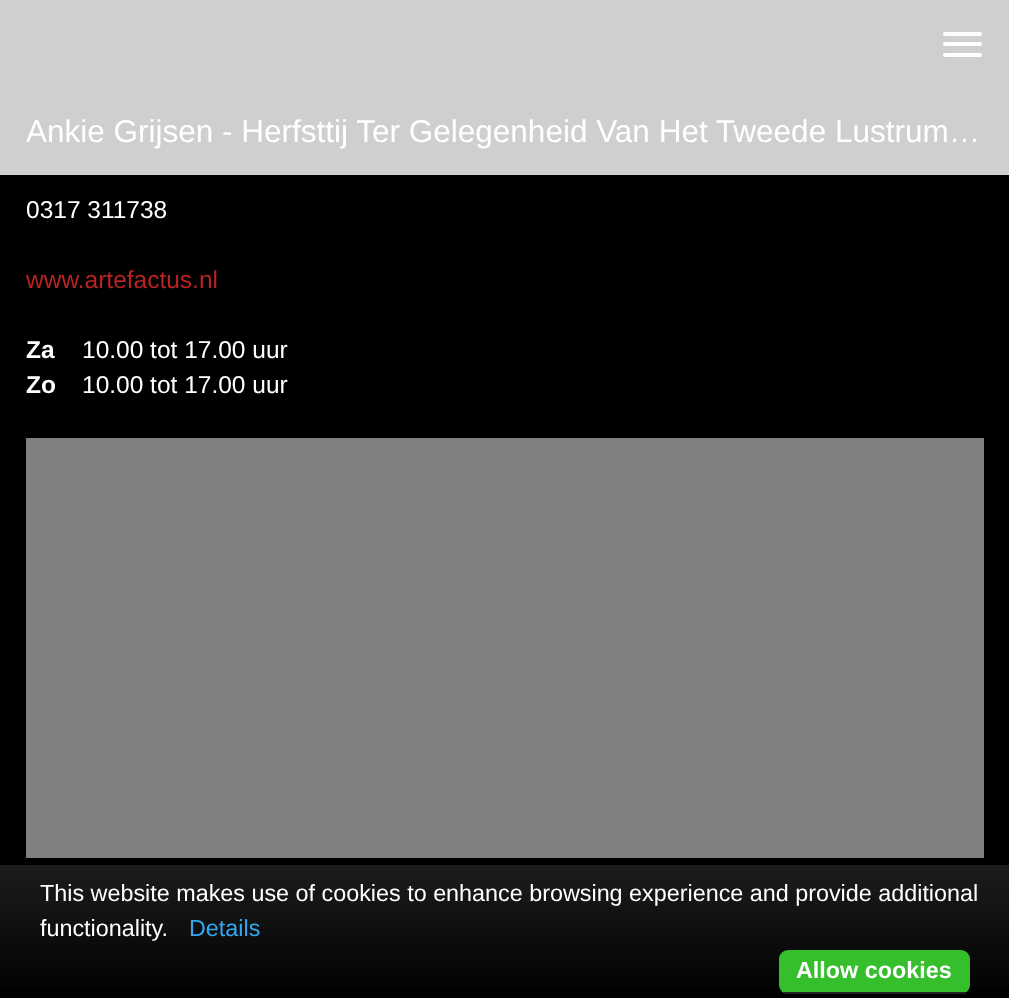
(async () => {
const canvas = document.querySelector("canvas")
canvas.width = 1009
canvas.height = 998
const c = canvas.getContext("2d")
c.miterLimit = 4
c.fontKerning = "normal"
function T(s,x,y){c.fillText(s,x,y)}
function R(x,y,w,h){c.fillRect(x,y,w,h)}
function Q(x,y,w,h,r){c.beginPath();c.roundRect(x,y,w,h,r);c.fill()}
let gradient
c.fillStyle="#000"
R(0,0,1009,998)
c.fillStyle="#cfcfcf"
R(0,0,1009,175)
c.fillStyle="#fff"
Q(943,32,39,4,2)
Q(943,42,39,4,2)
Q(943,53,39,4,2)
c.font="31.5px Liberation Sans"
T("Ankie Grijsen - Herfsttij Ter Gelegenheid Van Het Tweede Lustrum…",26,142)
c.font="24.5px Liberation Sans"
T("0317 311738",26,218)
c.fillStyle="#b72222"
T("www.artefactus.nl",26,288)
c.font="bold 24.5px Liberation Sans"
c.fillStyle="#fff"
T("Za",26,358)
c.font="24.5px Liberation Sans"
T("10.00 tot 17.00 uur",82,358)
c.font="bold 24.5px Liberation Sans"
T("Zo",26,393)
c.font="24.5px Liberation Sans"
T("10.00 tot 17.00 uur",82,393)
c.fillStyle="#808080"
R(26,438,958,420)
gradient = c.createLinearGradient(505,864,505,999)
gradient.addColorStop(0,"#1d1d1d")
gradient.addColorStop(1,"#000")
c.fillStyle = gradient
R(0,865,1009,122)
c.font="23.35px Liberation Sans"
c.fillStyle="#fff"
T("This website makes use of cookies to enhance browsing experience and provide additional",40,901)
T("functionality.",40,936)
c.fillStyle="#31a8f0"
T("Details",189,936)
c.fillStyle="#36bf2d"
Q(779,950,191,44,9)
c.fillStyle="#222"
R(784,992,182,2)
c.font="bold 23.35px Liberation Sans"
c.fillStyle="#fff"
T("Allow cookies",796,978)
})()
